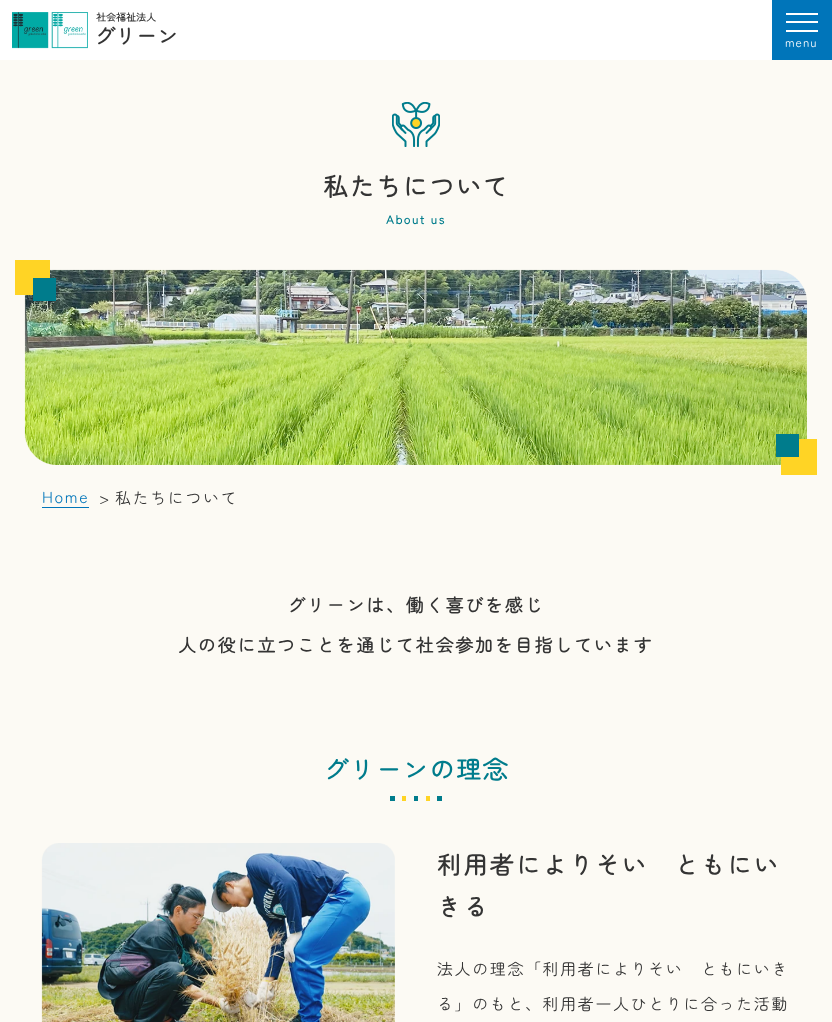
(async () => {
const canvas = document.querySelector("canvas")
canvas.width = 832
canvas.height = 1022
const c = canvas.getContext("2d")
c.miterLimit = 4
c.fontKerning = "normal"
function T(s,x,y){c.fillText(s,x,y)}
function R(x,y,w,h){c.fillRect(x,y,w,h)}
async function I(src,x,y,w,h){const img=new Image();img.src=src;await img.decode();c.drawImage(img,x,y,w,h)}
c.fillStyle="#fcfaf4"
R(0,0,832,1022)
c.fillStyle="#fff"
R(0,0,772,60)
await I("1.png",12,12,76,37)
c.font="bold 10px Zen Maru Gothic"
c.fillStyle="#343434"
T("社会福祉法人",96,21)
c.font="bold 21px Zen Maru Gothic"
T("グリーン",94,44)
c.fillStyle="#0075ba"
R(772,0,60,60)
c.fillStyle="#fff"
R(786,21,32,2)
R(786,13,32,2)
R(786,30,32,2)
c.letterSpacing="1px"
c.font="12px Zen Maru Gothic"
T("menu",785,47)
await I("2.png",392,102,48,45)
c.letterSpacing="1.6px"
c.font="bold 25px Zen Maru Gothic"
c.fillStyle="#343434"
T("私たちについて",323,196)
c.font="bold 12px Zen Maru Gothic"
c.fillStyle="#007c8c"
T("About us",386,224)
await I("3.png",24,269,783,196)
c.fillStyle="#ffd425"
R(15,260,35,35)
c.fillStyle="#007c8c"
R(33,278,23,23)
c.fillStyle="#ffd425"
R(781,439,36,36)
c.fillStyle="#007c8c"
R(776,434,23,23)
c.font="16px Zen Maru Gothic"
c.fillStyle="#0075ba"
T("Home",42,503)
R(42,507,47,1)
c.fillStyle="#343434"
T(">",99,504)
T("私たちについて",115,504)
c.letterSpacing="1.8px"
c.font="bold 18px Zen Maru Gothic"
T("グリーンは、働く喜びを感じ",287,612)
T("人の役に立つことを通じて社会参加を目指しています",178,652)
c.letterSpacing="1.6px"
c.font="bold 25px Zen Maru Gothic"
c.fillStyle="#007c8c"
T("グリーンの理念",323,779)
R(390,796,5,5)
c.fillStyle="#ffd425"
R(402,796,4,5)
c.fillStyle="#007c8c"
R(437,796,5,5)
R(414,796,4,5)
c.fillStyle="#ffd425"
R(426,796,4,5)
await I("4.png",41,843,354,179)
c.letterSpacing="2.4px"
c.font="bold 24px Zen Maru Gothic"
c.fillStyle="#343434"
T("利用者によりそい　ともにい",437,874)
T("きる",437,916)
c.letterSpacing="1.6px"
c.font="16px Zen Maru Gothic"
T("法人の理念「利用者によりそい　ともにいき",437,975)
T("る」のもと、利用者一人ひとりに合った活動",437,1010)
})()
